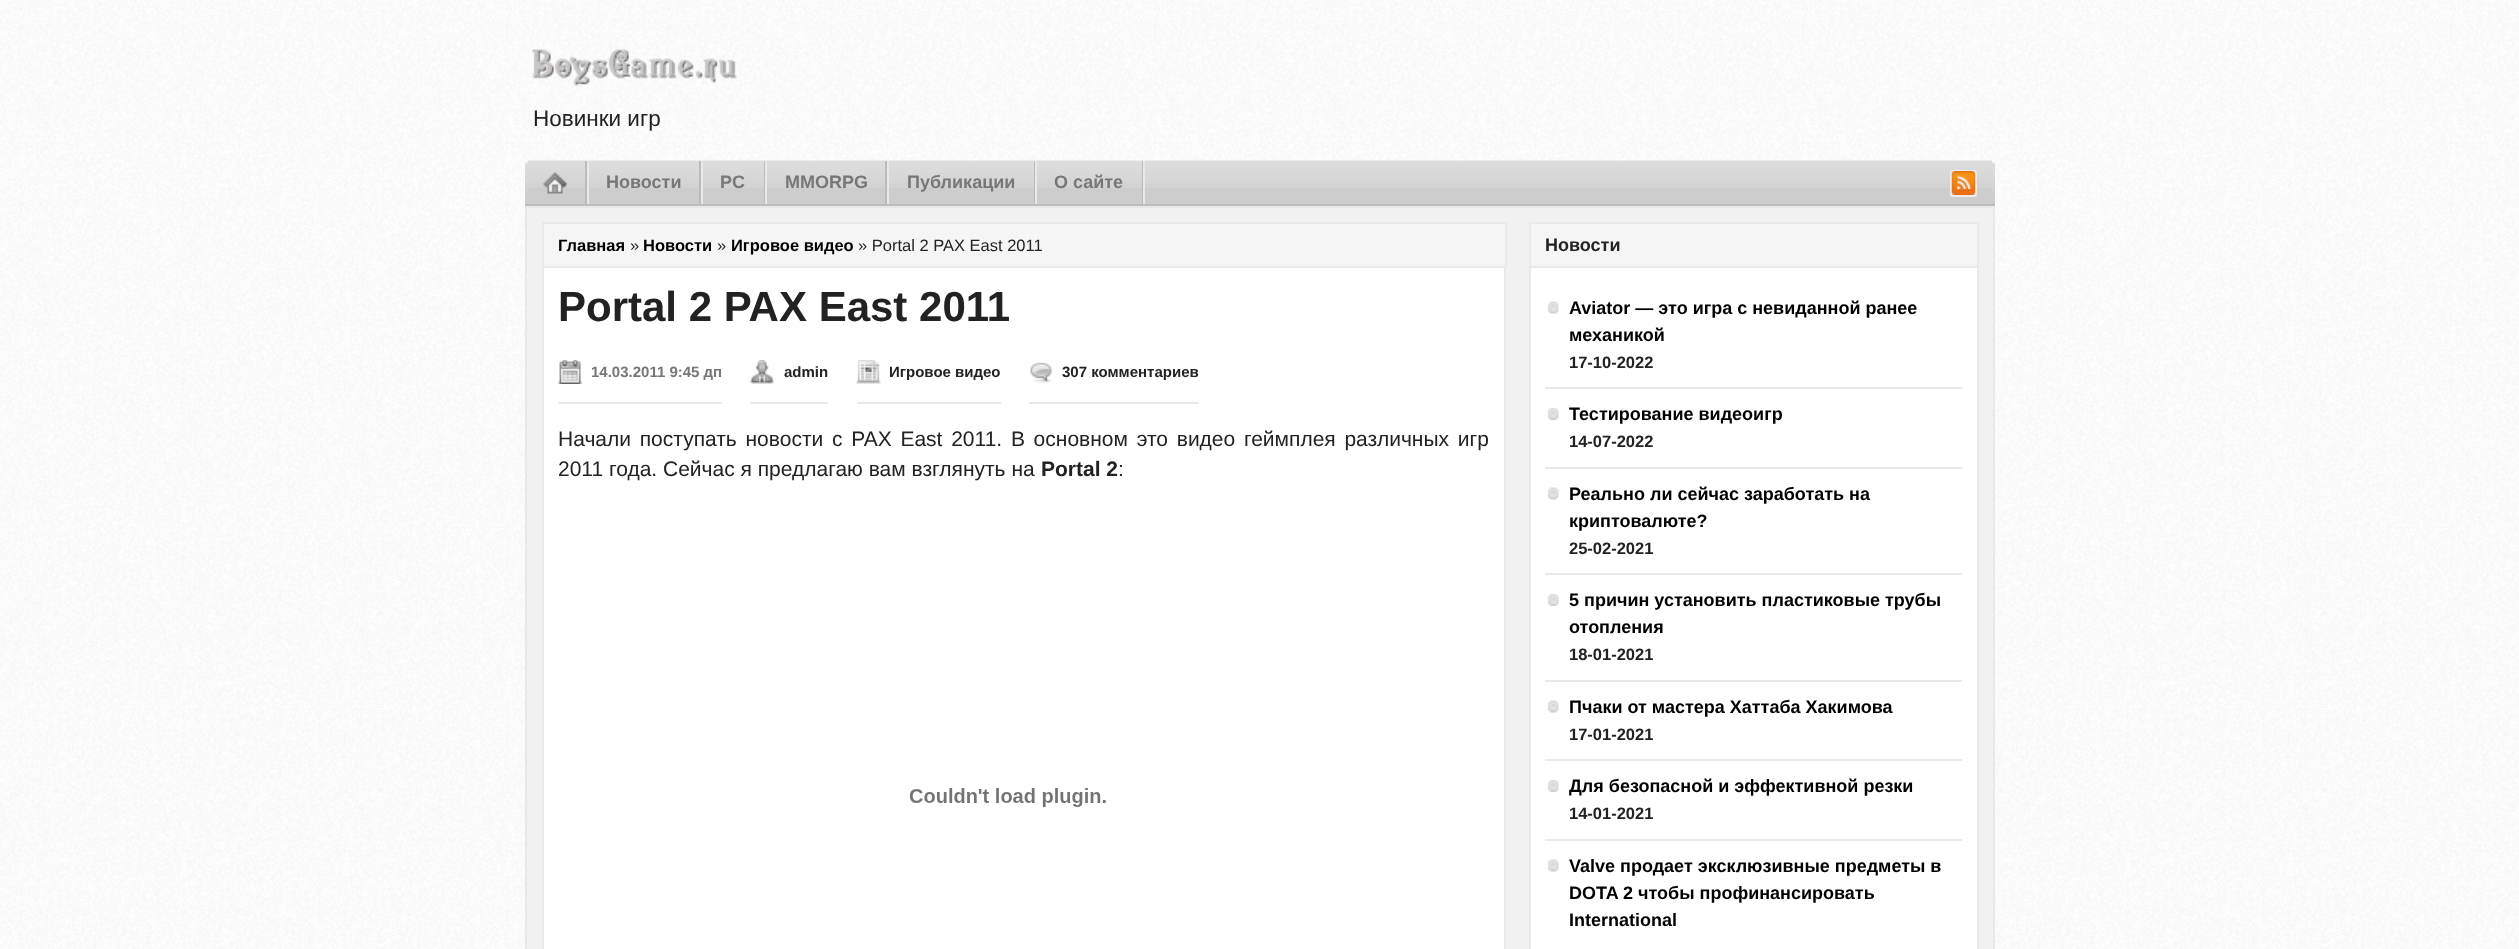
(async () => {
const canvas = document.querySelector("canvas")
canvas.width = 2519
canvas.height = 949
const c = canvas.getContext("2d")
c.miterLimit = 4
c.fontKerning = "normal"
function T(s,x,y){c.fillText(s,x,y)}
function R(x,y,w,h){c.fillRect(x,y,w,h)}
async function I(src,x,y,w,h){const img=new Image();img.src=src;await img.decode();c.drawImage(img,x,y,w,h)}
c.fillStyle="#fff"
R(0,0,2519,949)
await I("1.png",0,0,2519,949)
await I("2.png",532,49,205,37)
c.font="22.5px Liberation Sans"
c.fillStyle="#222"
T("Новинки игр",533,126)
c.fillStyle="#bcbcbc"
R(525,204,1470,2)
await I("3.png",525,162,3,42)
c.fillStyle="#cdcdcd"
R(528,188,1464,16)
await I("4.png",528,160,1464,28)
c.fillStyle="#bbb"
R(585,161,2,43)
await I("5.png",543,172,24,22)
R(699,161,2,43)
c.fillStyle="#e9e9e9"
R(587,161,2,43)
c.font="bold 18px Liberation Sans"
c.fillStyle="#777"
T("Новости",606,188)
c.fillStyle="#bbb"
R(764,161,1,43)
c.fillStyle="#e9e9e9"
R(701,161,2,43)
c.fillStyle="#777"
T("PC",720,188)
c.fillStyle="#bbb"
R(885,161,2,43)
c.fillStyle="#e9e9e9"
R(765,161,2,43)
c.fillStyle="#777"
T("MMORPG",785,188)
c.fillStyle="#bbb"
R(1034,161,1,43)
c.fillStyle="#e9e9e9"
R(887,161,2,43)
c.fillStyle="#777"
T("Публикации",907,188)
c.fillStyle="#bbb"
R(1142,161,1,43)
c.fillStyle="#e9e9e9"
R(1035,161,2,43)
c.fillStyle="#777"
T("О сайте",1054,188)
c.fillStyle="#e9e9e9"
R(1143,161,2,43)
c.beginPath()
c.roundRect(1951,171,25,25,2)
c.strokeStyle="#eee"
c.lineWidth=2
c.stroke()
await I("6.png",1951,171,25,24)
await I("7.png",1992,162,3,42)
c.fillStyle="#f1f1f1"
c.beginPath()
c.rect(526,207,1468,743)
c.fill()
c.strokeStyle="#e9e9e9"
c.stroke()
c.fillStyle="#f5f5f5"
R(544,224,961,42)
c.fillStyle="#e9e9e9"
R(542,222,964,2)
R(1505,222,2,44)
R(542,222,2,44)
c.font="bold 16.5px Liberation Sans"
c.fillStyle="#000"
T("Главная",558,251)
c.font="16.5px Liberation Sans"
c.fillStyle="#222"
T("»",630,251)
c.font="bold 16.5px Liberation Sans"
c.fillStyle="#000"
T("Новости",643,251)
c.font="16.5px Liberation Sans"
c.fillStyle="#222"
T("»",717,251)
c.font="bold 16.5px Liberation Sans"
c.fillStyle="#000"
T("Игровое видео",731,251)
c.font="16.5px Liberation Sans"
c.fillStyle="#222"
T("» Portal 2 PAX East 2011",858,251)
c.fillStyle="#fff"
c.beginPath()
c.rect(543,267,962,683)
c.fill()
c.stroke()
c.font="bold 42px Liberation Sans"
c.fillStyle="#222"
T("Portal 2 PAX East 2011",558,321)
await I("8.png",558,360,24,24)
c.fillStyle="#e9e9e9"
R(558,402,164,2)
c.font="bold 15px Liberation Sans"
c.fillStyle="#777"
T("14.03.2011 9:45 дп",591,377)
await I("9.png",750,360,24,24)
c.fillStyle="#e9e9e9"
R(750,402,78,2)
c.fillStyle="#222"
T("admin",784,377)
await I("10.png",856,360,25,24)
c.fillStyle="#e9e9e9"
R(857,402,144,2)
c.fillStyle="#222"
T("Игровое видео",889,377)
await I("11.png",1030,362,22,21)
c.fillStyle="#e9e9e9"
R(1029,402,170,2)
c.fillStyle="#222"
T("307 комментариев",1062,377)
c.wordSpacing="2.9px"
c.font="21px Liberation Sans"
T("Начали поступать новости с PAX East 2011. В основном это видео геймплея различных игр",558,446)
c.wordSpacing="0px"
T("2011 года. Сейчас я предлагаю вам взглянуть на",558,476)
c.font="bold 21px Liberation Sans"
T("Portal 2",1041,476)
c.font="21px Liberation Sans"
T(":",1118,476)
await I("12.png",909,788,197,19)
c.fillStyle="#f5f5f5"
R(1531,224,446,42)
c.fillStyle="#e9e9e9"
R(1529,222,450,2)
R(1977,222,2,44)
R(1529,222,2,44)
c.font="bold 18px Liberation Sans"
c.fillStyle="#222"
T("Новости",1545,251)
c.fillStyle="#fff"
c.beginPath()
c.rect(1530,267,448,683)
c.fill()
c.stroke()
await I("13.png",1547,301,12,13)
c.fillStyle="#e9e9e9"
R(1545,387,417,2)
c.fillStyle="#000"
T("Aviator — это игра с невиданной ранее",1569,314)
T("механикой",1569,341)
c.font="bold 16.5px Liberation Sans"
c.fillStyle="#222"
T("17-10-2022",1569,368)
await I("14.png",1547,407,12,13)
c.fillStyle="#e9e9e9"
R(1545,467,417,2)
c.font="bold 18px Liberation Sans"
c.fillStyle="#000"
T("Тестирование видеоигр",1569,420)
c.font="bold 16.5px Liberation Sans"
c.fillStyle="#222"
T("14-07-2022",1569,447)
await I("13.png",1547,487,12,13)
c.fillStyle="#e9e9e9"
R(1545,573,417,2)
c.font="bold 18px Liberation Sans"
c.fillStyle="#000"
T("Реально ли сейчас заработать на",1569,500)
T("криптовалюте?",1569,527)
c.font="bold 16.5px Liberation Sans"
c.fillStyle="#222"
T("25-02-2021",1569,554)
await I("14.png",1547,593,12,13)
c.fillStyle="#e9e9e9"
R(1545,680,417,2)
c.font="bold 18px Liberation Sans"
c.fillStyle="#000"
T("5 причин установить пластиковые трубы",1569,606)
T("отопления",1569,633)
c.font="bold 16.5px Liberation Sans"
c.fillStyle="#222"
T("18-01-2021",1569,660)
await I("13.png",1547,700,12,13)
c.fillStyle="#e9e9e9"
R(1545,759,417,2)
c.font="bold 18px Liberation Sans"
c.fillStyle="#000"
T("Пчаки от мастера Хаттаба Хакимова",1569,713)
c.font="bold 16.5px Liberation Sans"
c.fillStyle="#222"
T("17-01-2021",1569,740)
await I("14.png",1547,779,12,13)
c.fillStyle="#e9e9e9"
R(1545,839,417,2)
c.font="bold 18px Liberation Sans"
c.fillStyle="#000"
T("Для безопасной и эффективной резки",1569,792)
c.font="bold 16.5px Liberation Sans"
c.fillStyle="#222"
T("14-01-2021",1569,819)
await I("13.png",1547,859,12,13)
c.font="bold 18px Liberation Sans"
c.fillStyle="#000"
T("Valve продает эксклюзивные предметы в",1569,872)
T("DOTA 2 чтобы профинансировать",1569,899)
T("International",1569,926)
})()
